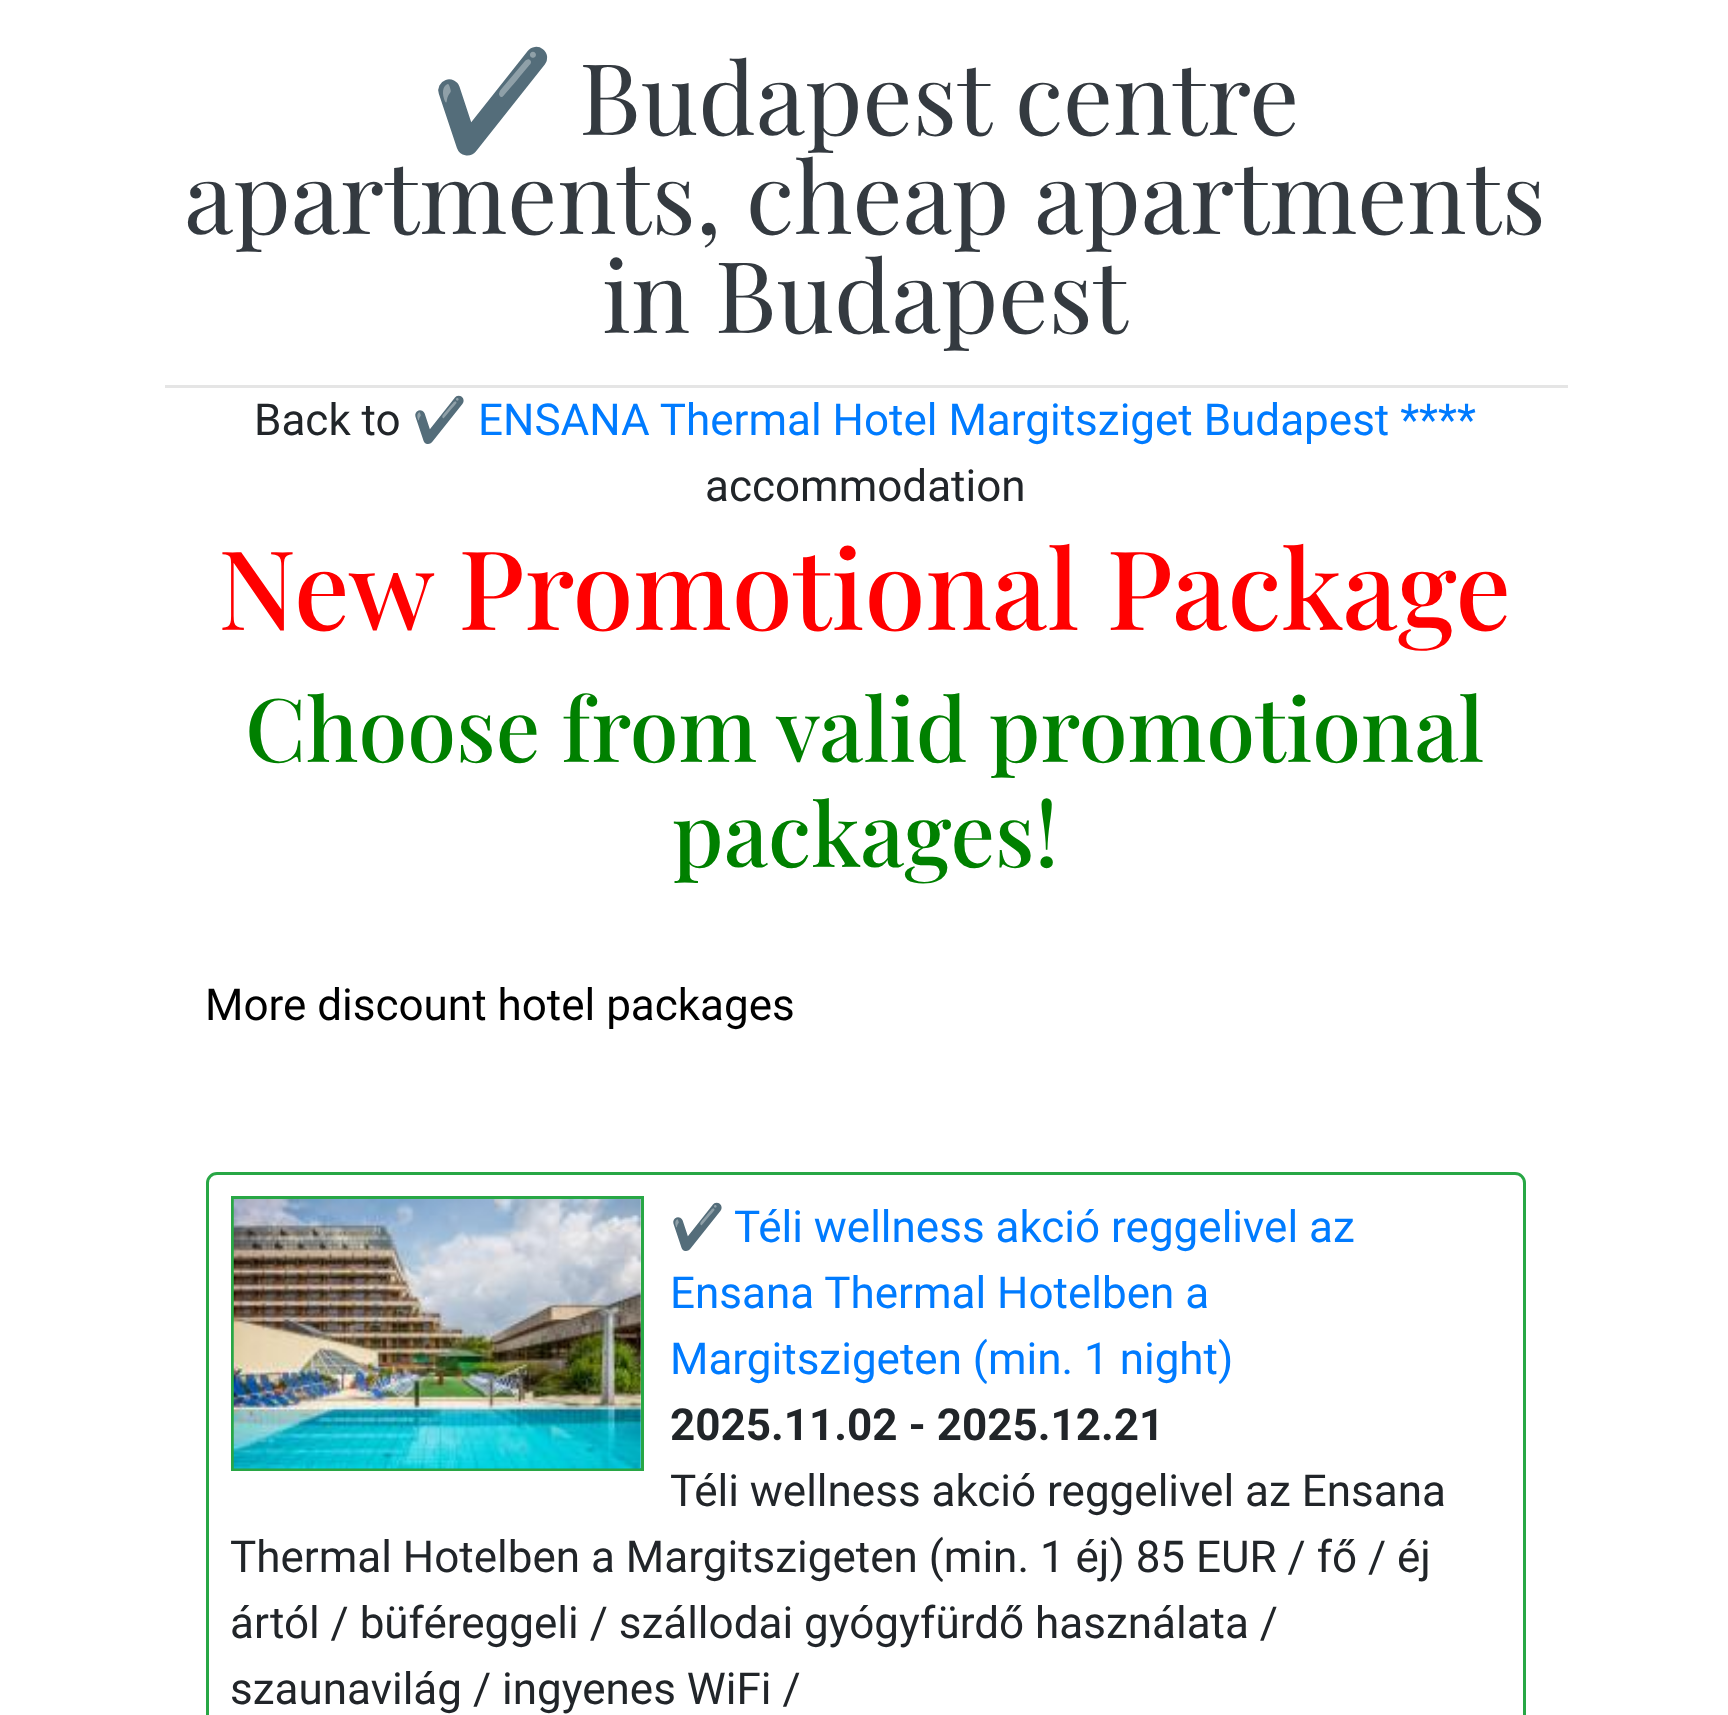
(async () => {
const canvas = document.querySelector("canvas")
canvas.width = 1728
canvas.height = 1715
const c = canvas.getContext("2d")
c.miterLimit = 4
c.fontKerning = "normal"
function T(s,x,y){c.fillText(s,x,y)}
function R(x,y,w,h){c.fillRect(x,y,w,h)}
async function I(src,x,y,w,h){const img=new Image();img.src=src;await img.decode();c.drawImage(img,x,y,w,h)}
c.fillStyle="#fff"
R(0,0,1728,1715)
c.fillStyle="#e5e5e5"
R(165,385,1403,3)
c.font="99px Noto Color Emoji"
c.fillStyle="#343a40"
T("✔️",431,135)
c.font="99px Playfair Display"
T("Budapest centre",579,135)
T("apartments, cheap apartments",184,234)
T("in Budapest",602,333)
c.font="44px Roboto"
c.fillStyle="#212529"
T("Back to",254,435)
c.font="44px Noto Color Emoji"
c.fillStyle="#007bff"
T("✔️",412,435)
c.font="44px Roboto"
T("ENSANA Thermal Hotel Margitsziget Budapest ****",478,435)
c.fillStyle="#212529"
T("accommodation",705,501)
c.font="500 110px Playfair Display"
c.fillStyle="#f00"
T("New Promotional Package",218,630)
c.font="500 88px Playfair Display"
c.fillStyle="#008000"
T("Choose from valid promotional",245,762)
T("packages!",672,867)
c.font="44px Roboto"
c.fillStyle="#000"
T("More discount hotel packages",205,1020)
c.beginPath()
c.roundRect(207.5,1173.5,1317,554,9.5)
c.strokeStyle="#28a745"
c.lineWidth=3
c.stroke()
c.strokeRect(232.5,1197.5,410,272)
await I("1.png",233,1199,408,270)
c.font="44px Noto Color Emoji"
c.fillStyle="#007bff"
T("✔️",670,1242)
c.font="44px Roboto"
T("Téli wellness akció reggelivel az",734,1242)
T("Ensana Thermal Hotelben a",670,1308)
T("Margitszigeten (min. 1 night)",670,1374)
c.font="bold 44px Roboto"
c.fillStyle="#212529"
T("2025.11.02 - 2025.12.21",670,1440)
c.font="44px Roboto"
T("Téli wellness akció reggelivel az Ensana",670,1506)
T("Thermal Hotelben a Margitszigeten (min. 1 éj) 85 EUR / fő / éj",230,1572)
T("ártól / büféreggeli / szállodai gyógyfürdő használata /",230,1638)
T("szaunavilág / ingyenes WiFi /",230,1704)
})()
